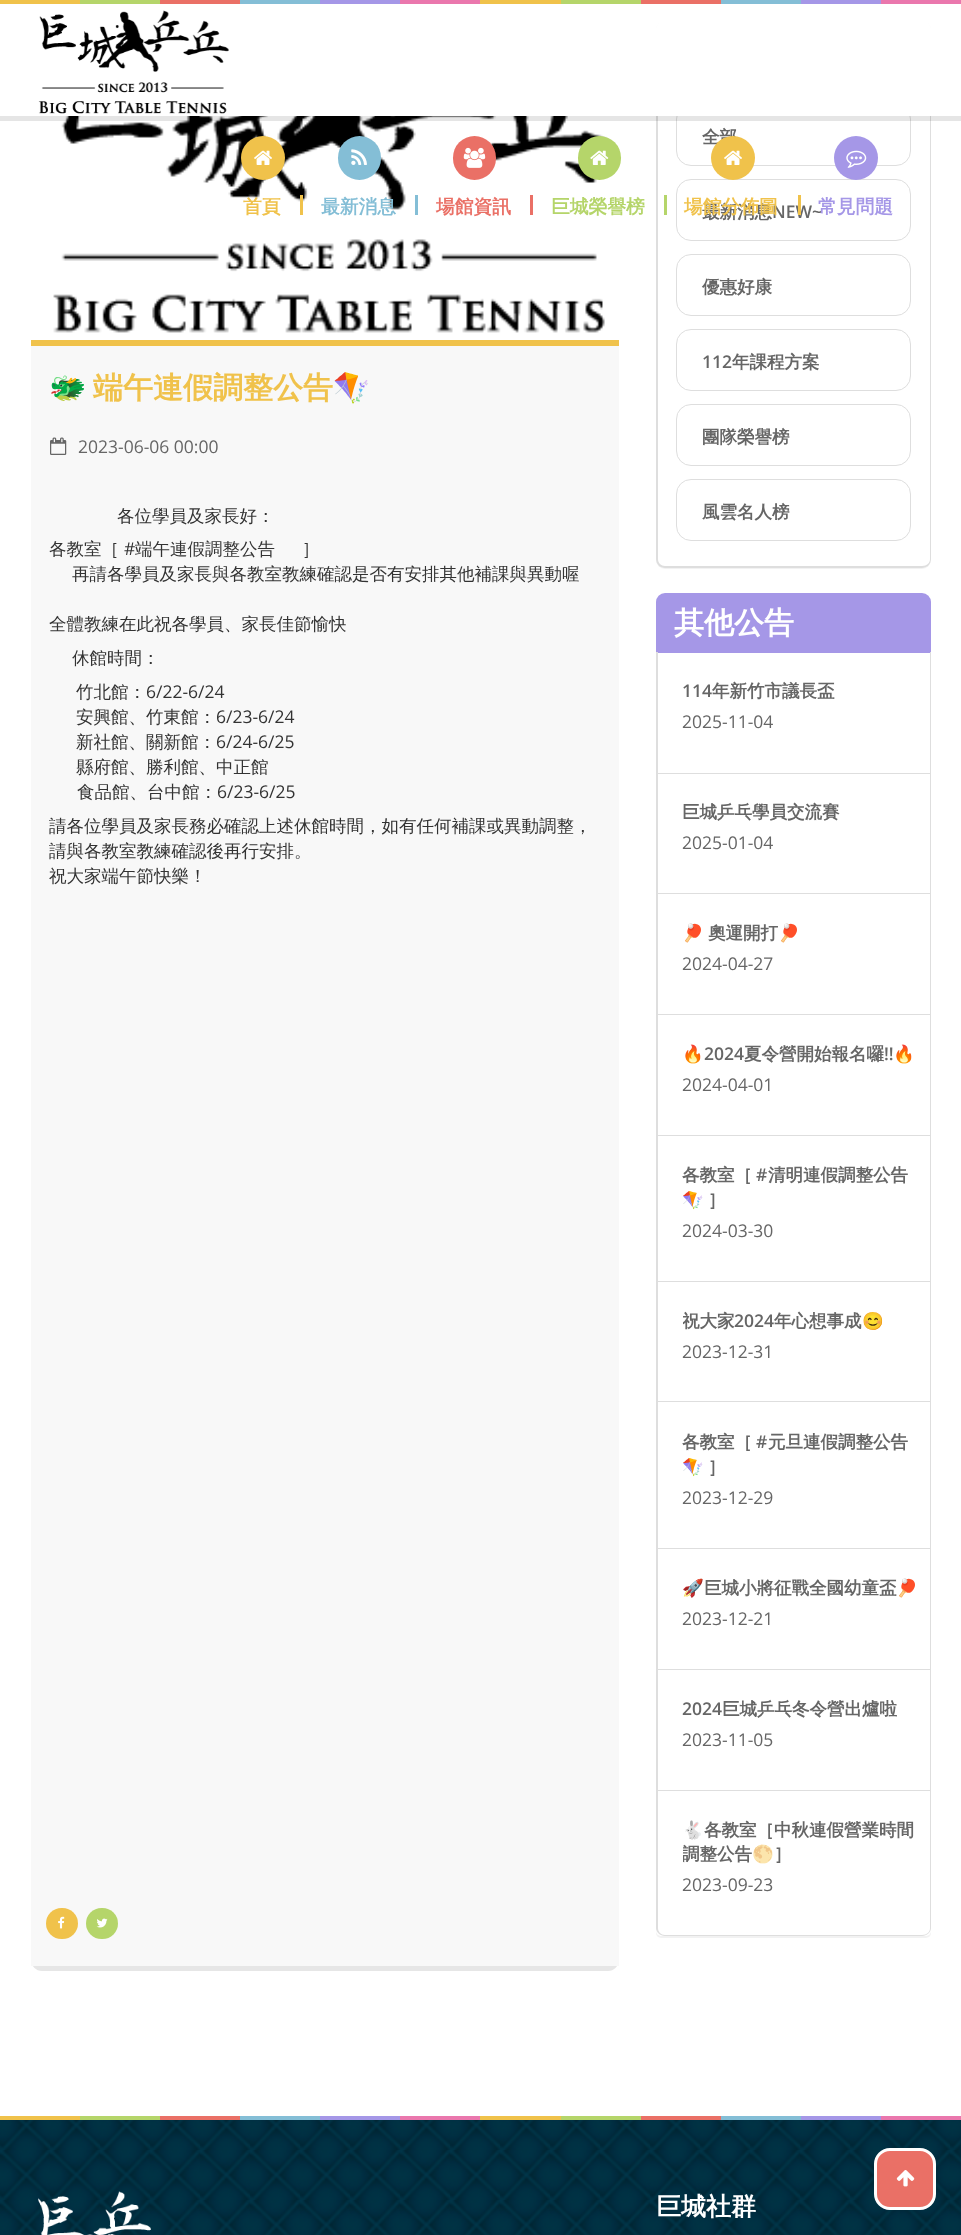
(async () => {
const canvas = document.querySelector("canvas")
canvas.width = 961
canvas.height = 2235
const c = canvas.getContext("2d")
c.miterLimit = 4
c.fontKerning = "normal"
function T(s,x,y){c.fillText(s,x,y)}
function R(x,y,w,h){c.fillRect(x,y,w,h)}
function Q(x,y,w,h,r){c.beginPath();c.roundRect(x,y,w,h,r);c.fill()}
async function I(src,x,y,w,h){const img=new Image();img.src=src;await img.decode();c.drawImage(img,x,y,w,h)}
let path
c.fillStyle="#fff"
R(0,0,961,2235)
c.fillStyle="#f0c24b"
R(0,0,80,4)
c.fillStyle="#b5d56a"
R(80,0,80,4)
c.fillStyle="#ea7066"
R(160,0,80,4)
c.fillStyle="#84bed6"
R(240,0,80,4)
c.fillStyle="#a597e7"
R(320,0,80,4)
c.fillStyle="#ea77ad"
R(400,0,80,4)
c.fillStyle="#f0c24b"
R(480,0,81,4)
c.fillStyle="#b5d56a"
R(561,0,80,4)
c.fillStyle="#ea7066"
R(641,0,80,4)
c.fillStyle="#84bed6"
R(721,0,80,4)
c.fillStyle="#a597e7"
R(801,0,80,4)
c.fillStyle="#ea77ad"
R(881,0,80,4)
c.fillStyle="#e6e6e6"
path = new Path2D("M31 34v1926c0 6 5 11 11 11h566c6 0 11-5 11-11v-1926v1921c0 6-5 11-11 11h-566c-6 0-11-5-11-11z")
c.fill(path)
await I("1.png",53,116,556,217)
c.fillStyle="#f8f8f8"
R(31,346,588,1620)
c.fillStyle="#f0c24b"
R(31,340,588,6)
c.save()
c.beginPath()
c.rect(50,365,550,43)
c.clip()
c.font="bold 30px Noto Color Emoji"
T("🐲",49,398)
c.restore()
c.font="bold 30px WenQuanYi Zen Hei"
T("端午連假調整公告",93,398)
c.font="bold 30px Noto Color Emoji"
T("🪁",333,398)
await I("2.png",50,437,17,18)
c.font="17.5px Open Sans"
c.fillStyle="#666"
T("2023-06-06 00:00",78,453)
c.font="500 17.5px WenQuanYi Zen Hei"
c.fillStyle="#333"
T("各位學員及家長好：",117,522)
T("各教室［",49,555)
c.font="17.5px Open Sans"
T("#",124,555)
c.font="500 17.5px WenQuanYi Zen Hei"
T("端午連假調整公告",135,555)
T("］",302,555)
T("再請各學員及家長與各教室教練確認是否有安排其他補課與異動喔",72,580)
T("全體教練在此祝各學員、家長佳節愉快",49,630)
T("休館時間：",72,664)
T("竹北館：",76,698)
c.font="17.5px Open Sans"
T("6/22-6/24",146,698)
c.font="500 17.5px WenQuanYi Zen Hei"
T("安興館、竹東館：",76,723)
c.font="17.5px Open Sans"
T("6/23-6/24",216,723)
c.font="500 17.5px WenQuanYi Zen Hei"
T("新社館、關新館：",76,748)
c.font="17.5px Open Sans"
T("6/24-6/25",216,748)
c.font="500 17.5px WenQuanYi Zen Hei"
T("縣府館、勝利館、中正館",76,773)
T("食品館、台中館：",77,798)
c.font="17.5px Open Sans"
T("6/23-6/25",217,798)
c.font="500 17.5px WenQuanYi Zen Hei"
T("請各位學員及家長務必確認上述休館時間，如有任何補課或異動調整，",49,832)
T("請與各教室教練確認後再行安排。",49,857)
T("祝大家端午節快樂！",49,882)
c.fillStyle="#f0c24b"
Q(46,1908,32,31,15.5)
await I("3.png",58,1916,7,13)
c.fillStyle="#b5d56a"
Q(86,1908,32,31,15.5)
await I("4.png",96,1918,12,10)
c.fillStyle="#0000000d"
c.filter="blur(0.5px)"
c.beginPath()
c.roundRect(656,21,275,548,9)
c.fill()
c.filter="none"
c.fillStyle="#fff"
Q(656,20,275,548,9)
c.fillStyle="#dedede"
path = new Path2D("M656 79h275v480c0 5-4 9-9 9h-257c-5 0-9-4-9-9zm2 0h272v480c0 4-3 7-8 7h-257c-4 0-7-3-7-7z")
c.fill(path,"evenodd")
c.beginPath()
c.roundRect(676.5,104.5,234,61,14.5)
c.strokeStyle="#dedede"
c.stroke()
c.font="bold 17.5px WenQuanYi Zen Hei"
c.fillStyle="#666"
T("全部",702,143)
c.beginPath()
c.roundRect(676.5,179.5,234,61,14.5)
c.stroke()
T("最新消息",702,218)
c.font="600 17.5px Open Sans"
T("NEW~",772,218)
c.beginPath()
c.roundRect(676.5,254.5,234,61,14.5)
c.stroke()
c.font="bold 17.5px WenQuanYi Zen Hei"
T("優惠好康",702,293)
c.beginPath()
c.roundRect(676.5,329.5,234,61,14.5)
c.stroke()
c.font="600 17.5px Open Sans"
T("112",702,368)
c.font="bold 17.5px WenQuanYi Zen Hei"
T("年課程方案",732,368)
c.beginPath()
c.roundRect(676.5,404.5,234,61,14.5)
c.stroke()
T("團隊榮譽榜",702,443)
c.beginPath()
c.roundRect(676.5,479.5,234,61,14.5)
c.stroke()
T("風雲名人榜",702,518)
c.fillStyle="#0000000d"
c.filter="blur(0.5px)"
c.beginPath()
c.roundRect(656,594,275,1344,5)
c.fill()
c.filter="none"
c.fillStyle="#fff"
Q(656,593,275,1343,5)
c.fillStyle="#a597e7"
c.beginPath()
c.roundRect(656,593,275,60,[9,9,0,0])
c.fill()
c.font="bold 30px WenQuanYi Zen Hei"
c.fillStyle="#fff"
T("其他公告",674,633)
c.fillStyle="#dedede"
path = new Path2D("M656 652h275v1276c0 4-4 8-9 8h-257c-5 0-9-4-9-8zm2 0h272v1276c0 4-3 7-8 7h-257c-4 0-7-3-7-7z")
c.fill(path,"evenodd")
R(658,773,272,1)
c.font="600 17.5px Open Sans"
c.fillStyle="#666"
T("114",682,697)
c.font="bold 17.5px WenQuanYi Zen Hei"
T("年新竹市議長盃",712,697)
c.font="17.5px Open Sans"
T("2025-11-04",682,728)
c.fillStyle="#dedede"
R(658,893,272,1)
c.font="bold 17.5px WenQuanYi Zen Hei"
c.fillStyle="#666"
T("巨城乒乓學員交流賽",682,818)
c.font="17.5px Open Sans"
T("2025-01-04",682,849)
c.fillStyle="#dedede"
R(658,1014,272,1)
c.save()
c.beginPath()
c.rect(683,919,247,70)
c.clip()
c.font="bold 17.5px Noto Color Emoji"
c.fillStyle="#666"
T("🏓",682,939)
c.restore()
c.font="bold 17.5px WenQuanYi Zen Hei"
c.fillStyle="#666"
T("奧運開打",708,939)
c.font="bold 17.5px Noto Color Emoji"
T("🏓",778,939)
c.font="17.5px Open Sans"
T("2024-04-27",682,970)
c.fillStyle="#dedede"
R(658,1135,272,1)
c.save()
c.beginPath()
c.rect(683,1040,247,70)
c.clip()
c.font="bold 17.5px Noto Color Emoji"
c.fillStyle="#666"
T("🔥",682,1060)
c.restore()
c.font="600 17.5px Open Sans"
c.fillStyle="#666"
T("2024",704,1060)
c.font="bold 17.5px WenQuanYi Zen Hei"
T("夏令營開始報名囉",744,1060)
c.font="600 17.5px Open Sans"
T("!!",884,1060)
c.font="bold 17.5px Noto Color Emoji"
T("🔥",893,1060)
c.font="17.5px Open Sans"
T("2024-04-01",682,1091)
c.fillStyle="#dedede"
R(658,1281,272,1)
c.font="bold 17.5px WenQuanYi Zen Hei"
c.fillStyle="#666"
T("各教室［",682,1181)
c.font="600 17.5px Open Sans"
T("#",756,1181)
c.font="bold 17.5px WenQuanYi Zen Hei"
T("清明連假調整公告",768,1181)
c.save()
c.beginPath()
c.rect(683,1161,247,95)
c.clip()
c.font="bold 17.5px Noto Color Emoji"
T("🪁",682,1206)
c.restore()
T("］",708,1206)
c.font="17.5px Open Sans"
T("2024-03-30",682,1237)
c.fillStyle="#dedede"
R(658,1401,272,1)
c.save()
c.beginPath()
c.rect(683,1308,247,68)
c.clip()
c.font="bold 17.5px WenQuanYi Zen Hei"
c.fillStyle="#666"
T("祝大家",682,1327)
c.restore()
c.font="600 17.5px Open Sans"
c.fillStyle="#666"
T("2024",734,1327)
c.font="bold 17.5px WenQuanYi Zen Hei"
T("年心想事成",774,1327)
c.font="bold 17.5px Noto Color Emoji"
T("😊",862,1327)
c.font="17.5px Open Sans"
T("2023-12-31",682,1358)
c.fillStyle="#dedede"
R(658,1548,272,1)
c.font="bold 17.5px WenQuanYi Zen Hei"
c.fillStyle="#666"
T("各教室［",682,1448)
c.font="600 17.5px Open Sans"
T("#",756,1448)
c.font="bold 17.5px WenQuanYi Zen Hei"
T("元旦連假調整公告",768,1448)
c.save()
c.beginPath()
c.rect(683,1428,247,95)
c.clip()
c.font="bold 17.5px Noto Color Emoji"
T("🪁",682,1473)
c.restore()
T("］",708,1473)
c.font="17.5px Open Sans"
T("2023-12-29",682,1504)
c.fillStyle="#dedede"
R(658,1669,272,1)
c.save()
c.beginPath()
c.rect(683,1574,247,70)
c.clip()
c.font="bold 17.5px Noto Color Emoji"
c.fillStyle="#666"
T("🚀",682,1594)
c.restore()
c.font="bold 17.5px WenQuanYi Zen Hei"
c.fillStyle="#666"
T("巨城小將征戰全國幼童盃",704,1594)
c.font="bold 17.5px Noto Color Emoji"
T("🏓",896,1594)
c.font="17.5px Open Sans"
T("2023-12-21",682,1625)
c.fillStyle="#dedede"
R(658,1790,272,1)
c.font="600 17.5px Open Sans"
c.fillStyle="#666"
T("2024",682,1715)
c.font="bold 17.5px WenQuanYi Zen Hei"
T("巨城乒乓冬令營出爐啦",722,1715)
c.font="17.5px Open Sans"
T("2023-11-05",682,1746)
c.save()
c.beginPath()
c.rect(683,1816,247,94)
c.clip()
c.font="bold 17.5px Noto Color Emoji"
T("🐇",682,1836)
c.restore()
c.font="bold 17.5px WenQuanYi Zen Hei"
T("各教室［中秋連假營業時間",704,1836)
c.save()
c.beginPath()
c.rect(683,1816,247,94)
c.clip()
T("調整公告",682,1860)
c.restore()
c.font="bold 17.5px Noto Color Emoji"
T("🌕",752,1860)
c.font="bold 17.5px WenQuanYi Zen Hei"
T("］",774,1860)
c.font="17.5px Open Sans"
T("2023-09-23",682,1891)
c.fillStyle="#f0c24b"
R(0,2116,80,4)
c.fillStyle="#b5d56a"
R(80,2116,80,4)
c.fillStyle="#ea7066"
R(160,2116,80,4)
c.fillStyle="#84bed6"
R(240,2116,80,4)
c.fillStyle="#a597e7"
R(320,2116,80,4)
c.fillStyle="#ea77ad"
R(400,2116,80,4)
c.fillStyle="#f0c24b"
R(480,2116,81,4)
c.fillStyle="#b5d56a"
R(561,2116,80,4)
c.fillStyle="#ea7066"
R(641,2116,80,4)
c.fillStyle="#84bed6"
R(721,2116,80,4)
c.fillStyle="#a597e7"
R(801,2116,80,4)
c.fillStyle="#ea77ad"
R(881,2116,80,4)
await I("5.png",0,2120,961,115)
await I("6.png",38,2191,113,44)
c.font="bold 25px WenQuanYi Zen Hei"
c.fillStyle="#fff"
T("巨城社群",656,2215)
c.fillStyle="#ea7066"
c.beginPath()
c.roundRect(875.5,2149.5,59,59,14.5)
c.fill()
c.strokeStyle="#fff"
c.lineWidth=3
c.stroke()
await I("7.png",896,2170,19,17)
c.fillStyle="#0000001a"
R(0,116,961,5)
c.fillStyle="#fff"
R(656,79,275,37)
await I("8.png",38,10,191,104)
c.fillStyle="#f0c24b"
c.beginPath()
c.arc(263,158,22,0,7)
c.fill()
await I("9.png",254,150,18,15)
R(300,195,3,20)
c.font="bold 18.75px WenQuanYi Zen Hei"
T("首頁",243,213)
c.fillStyle="#84bed6"
Q(338,136,43,44,21.5)
await I("10.png",351,149,16,16)
R(415,195,3,20)
T("最新消息",321,213)
c.fillStyle="#ea7066"
Q(453,136,43,44,21.5)
await I("11.png",463,147,23,21)
R(530,195,3,20)
T("場館資訊",436,213)
c.fillStyle="#b5d56a"
Q(578,136,43,44,21.5)
await I("12.png",590,150,19,15)
R(664,195,3,20)
T("巨城榮譽榜",551,213)
c.fillStyle="#f0c24b"
c.beginPath()
c.arc(733,158,22,0,7)
c.fill()
await I("9.png",724,150,18,15)
R(798,195,3,20)
T("場館分佈圖",684,213)
c.fillStyle="#a597e7"
c.beginPath()
c.arc(856,158,22,0,7)
c.fill()
await I("13.png",846,150,21,18)
T("常見問題",818,213)
})()
